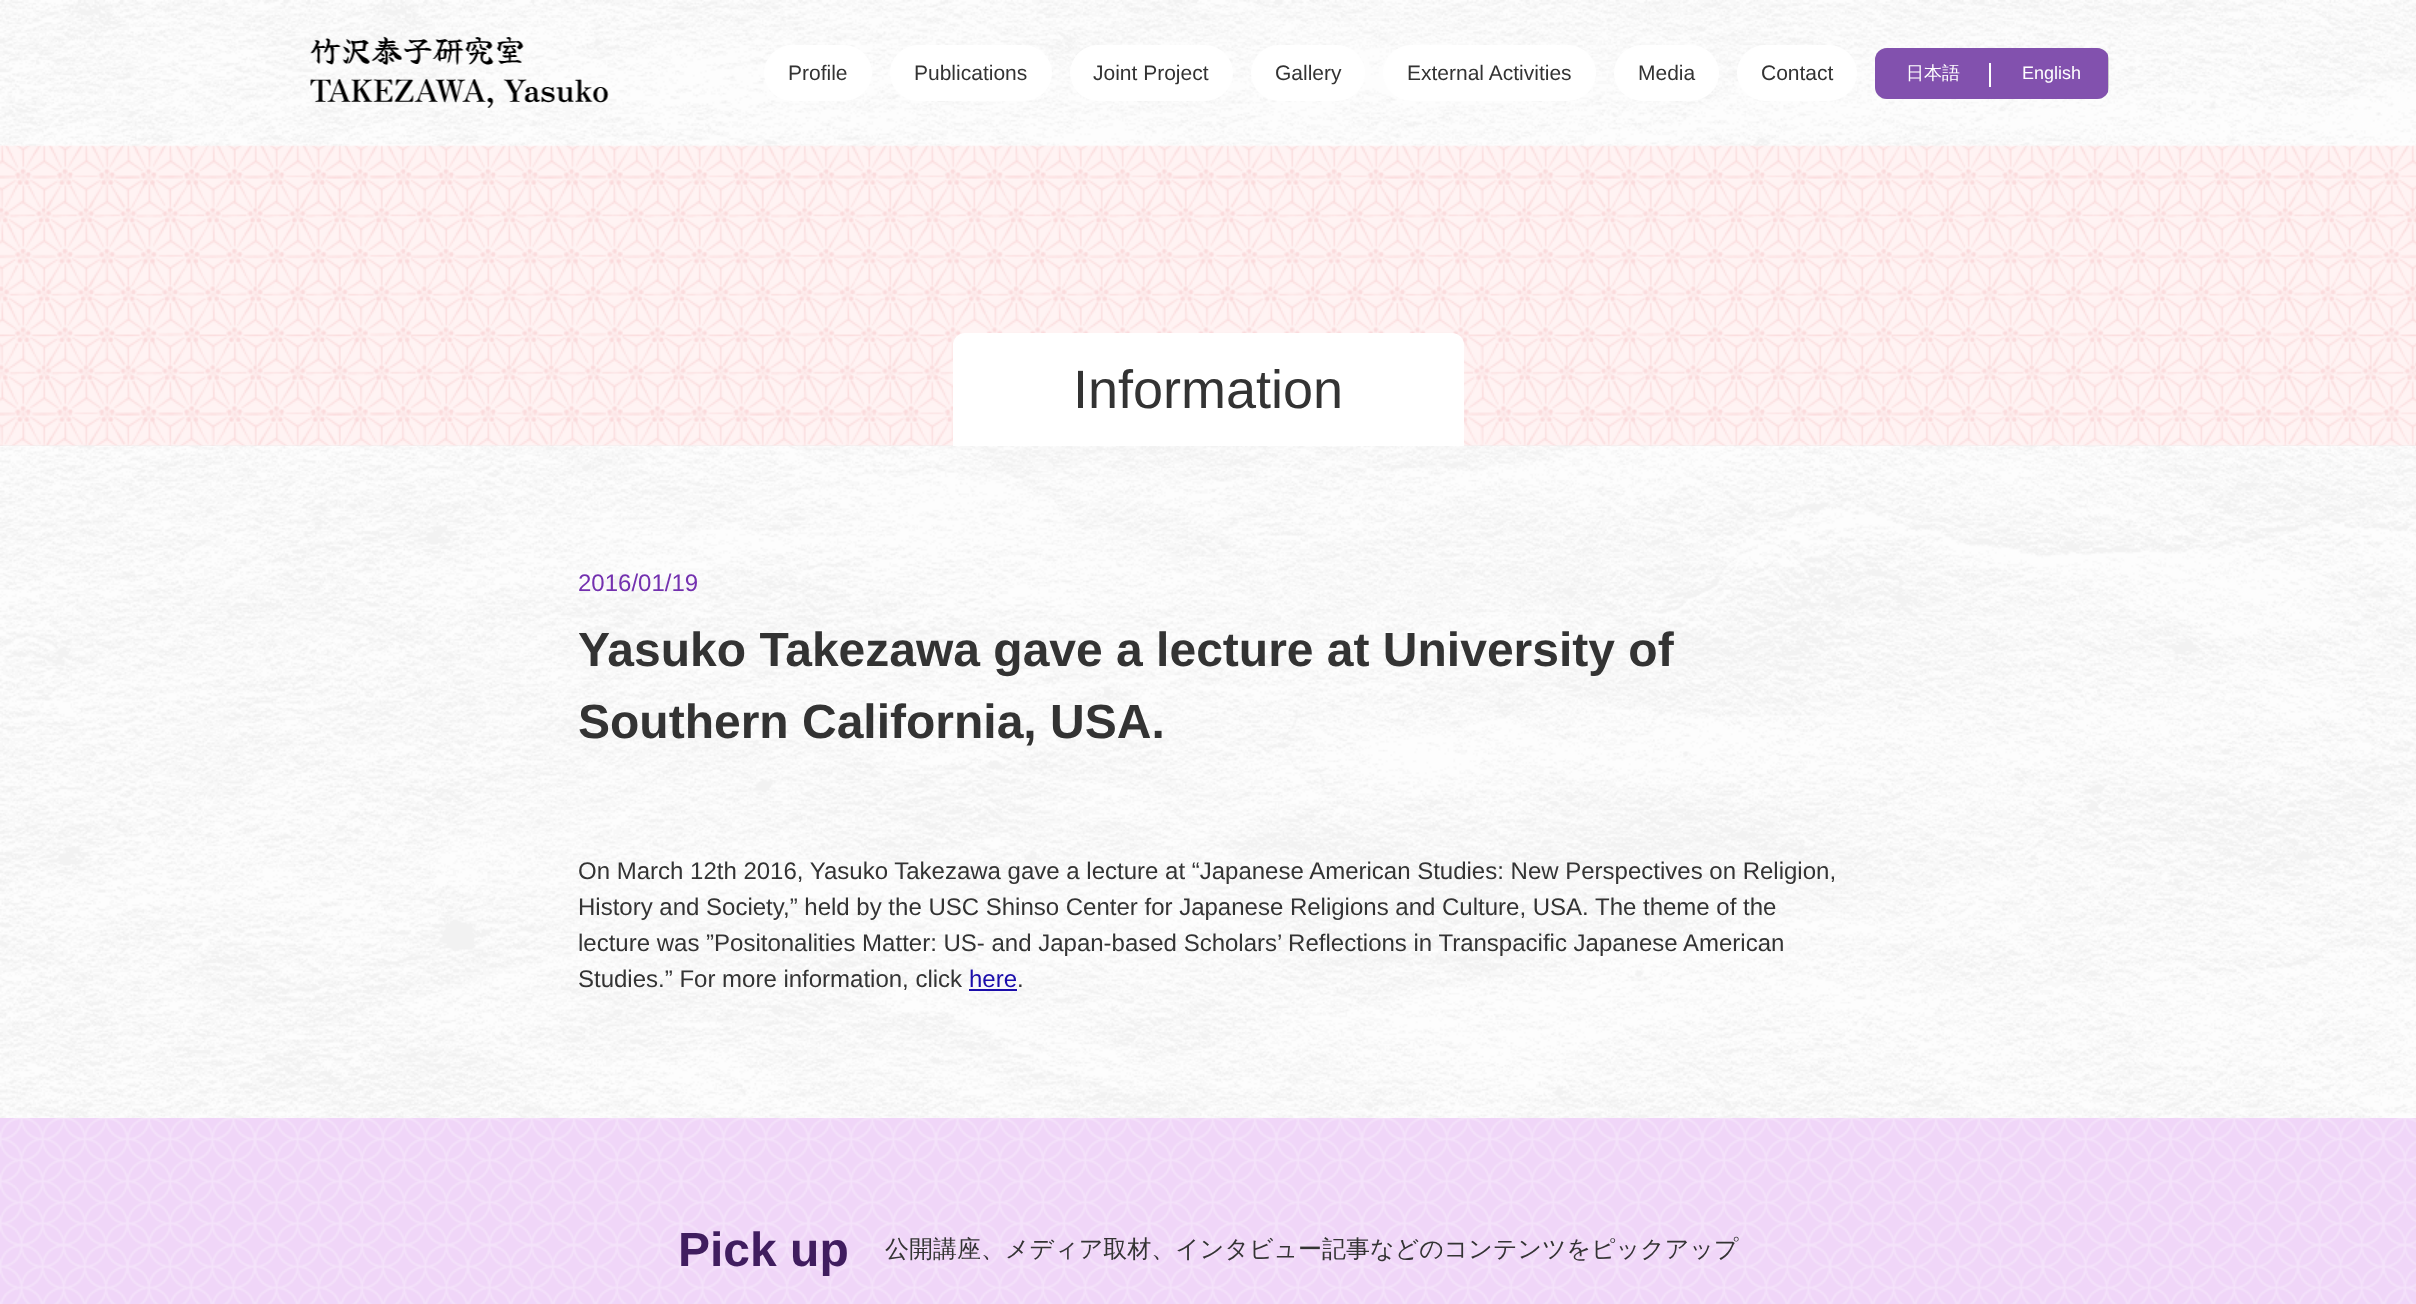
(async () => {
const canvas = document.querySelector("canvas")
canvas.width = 2416
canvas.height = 1304
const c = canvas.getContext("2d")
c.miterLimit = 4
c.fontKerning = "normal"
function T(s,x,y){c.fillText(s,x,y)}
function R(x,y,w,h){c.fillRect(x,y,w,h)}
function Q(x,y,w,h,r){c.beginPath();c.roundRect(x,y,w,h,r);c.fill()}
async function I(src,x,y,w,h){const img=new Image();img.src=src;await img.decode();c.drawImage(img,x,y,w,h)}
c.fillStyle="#fff"
R(0,0,2416,1304)
await I("1.png",0,0,2416,1118)
c.fillStyle="#eee"
R(0,445,2416,1)
await I("4.png",0,145,2416,301)
await I("2.png",5,145,2408,2)
await I("3.png",310,36,299,72)
c.fillStyle="#fff"
Q(764,45,108,56,28)
c.font="21px Liberation Sans"
c.fillStyle="#333"
T("Profile",788,80)
c.fillStyle="#fff"
Q(890,45,162,56,28)
c.fillStyle="#333"
T("Publications",914,80)
c.fillStyle="#fff"
Q(1070,45,163,56,28)
c.fillStyle="#333"
T("Joint Project",1093,80)
c.fillStyle="#fff"
Q(1251,45,114,56,28)
c.fillStyle="#333"
T("Gallery",1275,80)
c.fillStyle="#fff"
Q(1383,45,213,56,28)
c.fillStyle="#333"
T("External Activities",1407,80)
c.fillStyle="#fff"
Q(1614,45,105,56,28)
c.fillStyle="#333"
T("Media",1638,80)
c.fillStyle="#fff"
Q(1737,45,120,56,28)
c.fillStyle="#333"
T("Contact",1761,80)
c.fillStyle="#ccc"
Q(1875,48,234,51,12)
c.fillStyle="#8251ae"
c.beginPath()
c.roundRect(1875,48,117,51,[12,0,0,12])
c.fill()
c.font="500 18px WenQuanYi Zen Hei"
c.fillStyle="#fff"
T("日本語",1906,79)
c.save()
c.beginPath()
c.roundRect(1875,48,234,51,12)
c.clip()
c.fillStyle="#8251ae"
R(1992,48,116,51)
c.restore()
R(1989,63,2,24)
c.font="18px Liberation Sans"
T("English",2022,79)
c.beginPath()
c.roundRect(953,333,511,113,[12,12,0,0])
c.fill()
c.font="54px Liberation Sans"
c.fillStyle="#333"
T("Information",1073,408)
c.font="24px Liberation Sans"
c.fillStyle="#7330af"
T("2016/01/19",578,591)
c.font="bold 48px Liberation Sans"
c.fillStyle="#333"
T("Yasuko Takezawa gave a lecture at University of",578,666)
T("Southern California, USA.",578,738)
c.font="24px Liberation Sans"
T("On March 12th 2016, Yasuko Takezawa gave a lecture at “Japanese American Studies: New Perspectives on Religion,",578,879)
T("History and Society,” held by the USC Shinso Center for Japanese Religions and Culture, USA. The theme of the",578,915)
T("lecture was ”Positonalities Matter: US- and Japan-based Scholars’ Reflections in Transpacific Japanese American",578,951)
T("Studies.” For more information, click",578,987)
c.fillStyle="#1a0dab"
T("here",969,987)
R(969,989,48,2)
c.fillStyle="#333"
T(".",1017,987)
c.fillStyle="#f0d6f8"
R(0,1118,2416,186)
await I("5.png",0,1118,2416,186)
c.font="bold 48px Liberation Sans"
c.fillStyle="#401d5f"
T("Pick up",678,1266)
c.font="500 24px WenQuanYi Zen Hei"
c.fillStyle="#333"
T("公開講座、メディア取材、インタビュー記事などのコンテンツをピックアップ",885,1257)
})()
